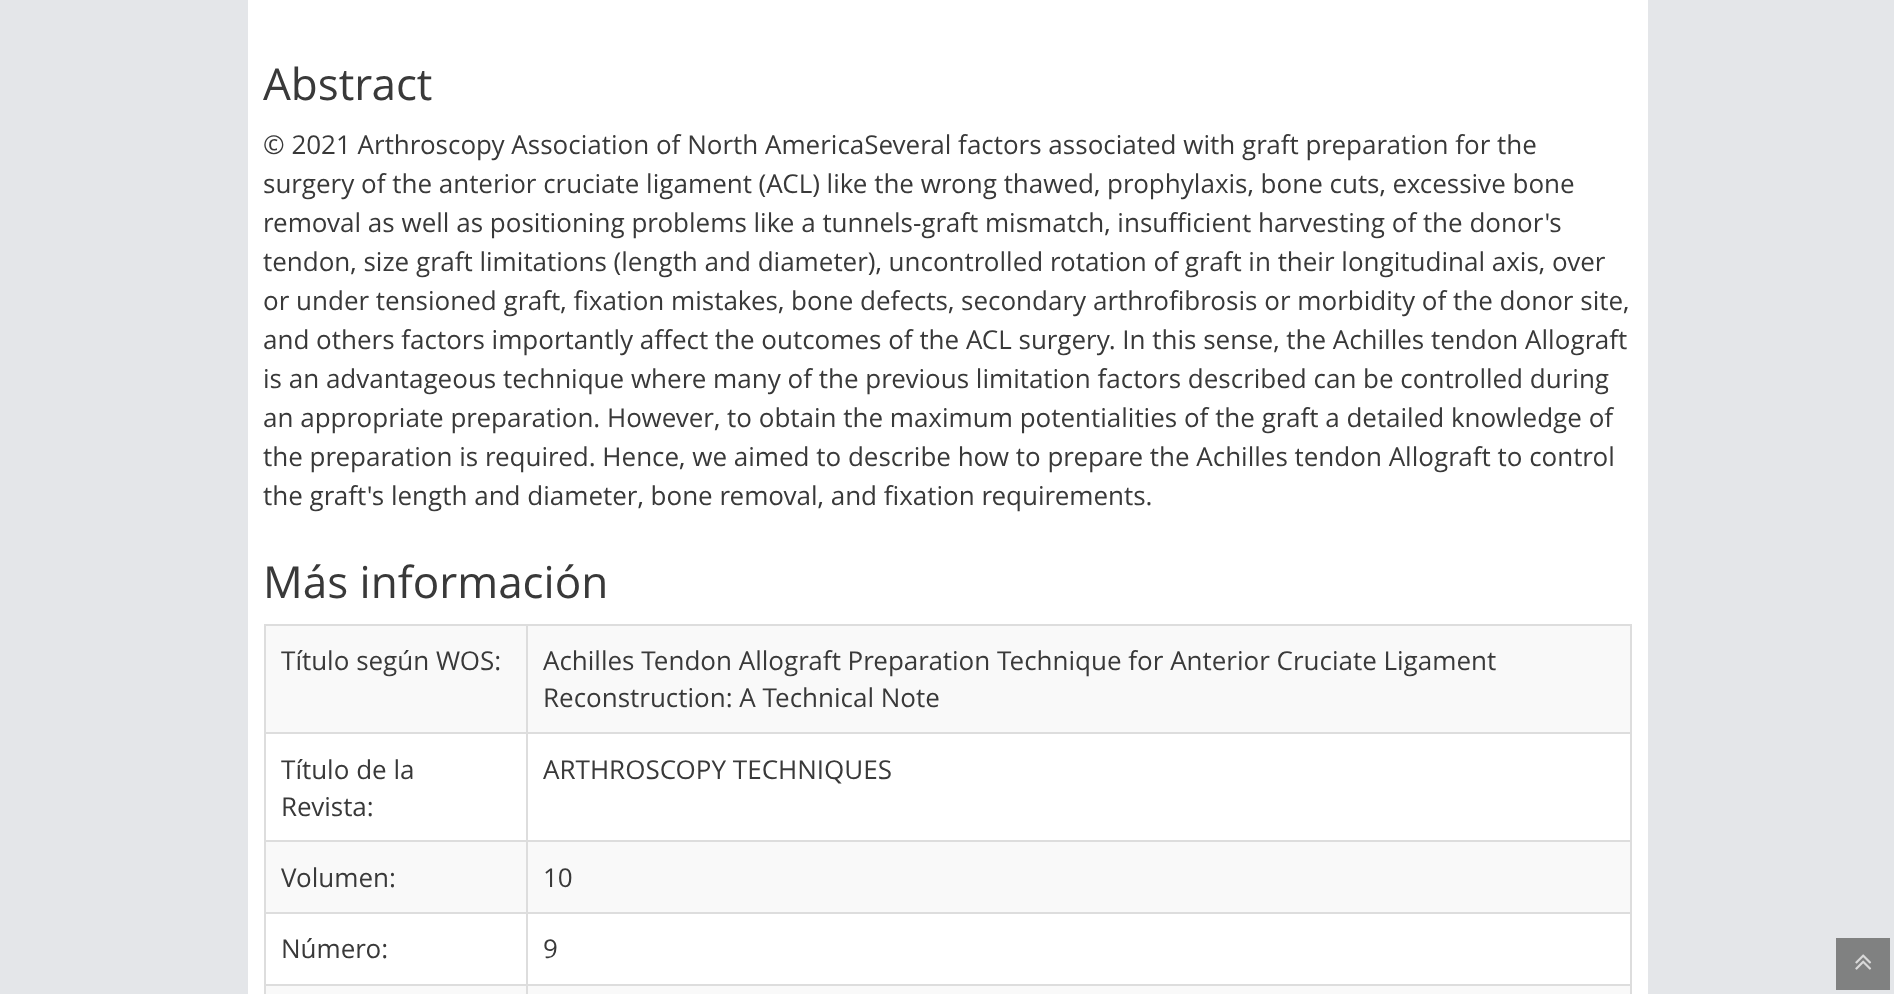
(async () => {
const canvas = document.querySelector("canvas")
canvas.width = 1894
canvas.height = 994
const c = canvas.getContext("2d")
c.miterLimit = 4
c.fontKerning = "normal"
function T(s,x,y){c.fillText(s,x,y)}
function R(x,y,w,h){c.fillRect(x,y,w,h)}
async function I(src,x,y,w,h){const img=new Image();img.src=src;await img.decode();c.drawImage(img,x,y,w,h)}
c.fillStyle="#e4e6e9"
R(0,0,1894,994)
c.fillStyle="#fff"
R(248,0,1400,994)
c.font="44px Open Sans"
c.fillStyle="#393939"
T("Abstract",263,100)
c.font="26px Open Sans"
T("© 2021 Arthroscopy Association of North AmericaSeveral factors associated with graft preparation for the",263,154)
T("surgery of the anterior cruciate ligament (ACL) like the wrong thawed, prophylaxis, bone cuts, excessive bone",263,193)
T("removal as well as positioning problems like a tunnels-graft mismatch, insufficient harvesting of the donor's",263,232)
T("tendon, size graft limitations (length and diameter), uncontrolled rotation of graft in their longitudinal axis, over",263,271)
T("or under tensioned graft, fixation mistakes, bone defects, secondary arthrofibrosis or morbidity of the donor site,",263,310)
T("and others factors importantly affect the outcomes of the ACL surgery. In this sense, the Achilles tendon Allograft",263,349)
T("is an advantageous technique where many of the previous limitation factors described can be controlled during",263,388)
T("an appropriate preparation. However, to obtain the maximum potentialities of the graft a detailed knowledge of",263,427)
T("the preparation is required. Hence, we aimed to describe how to prepare the Achilles tendon Allograft to control",263,466)
T("the graft's length and diameter, bone removal, and fixation requirements.",263,505)
c.font="44px Open Sans"
T("Más información",263,598)
c.fillStyle="#ddd"
R(264,624,1368,2)
R(1630,624,2,370)
R(264,624,2,370)
c.fillStyle="#f9f9f9"
R(266,626,1364,106)
c.font="26px Open Sans"
c.fillStyle="#393939"
T("Título según WOS:",281,670)
c.fillStyle="#ddd"
R(526,732,1106,2)
R(526,840,1106,2)
c.fillStyle="#f9f9f9"
R(266,842,1364,70)
c.fillStyle="#ddd"
R(526,912,1106,2)
R(526,984,1106,2)
c.fillStyle="#f9f9f9"
R(266,986,1364,8)
c.fillStyle="#ddd"
R(526,984,2,10)
R(264,984,264,2)
R(526,912,2,74)
R(264,912,264,2)
R(526,840,2,74)
R(264,840,264,2)
R(526,732,2,110)
R(264,732,264,2)
R(526,624,2,110)
c.fillStyle="#393939"
T("Achilles Tendon Allograft Preparation Technique for Anterior Cruciate Ligament",543,670)
T("Reconstruction: A Technical Note",543,707)
T("Título de la",281,779)
T("Revista:",281,816)
T("ARTHROSCOPY TECHNIQUES",543,779)
T("Volumen:",281,887)
T("10",543,887)
T("Número:",281,958)
T("9",543,958)
c.fillStyle="#808181"
R(1836,938,54,52)
await I("1.png",1855,954,17,16)
})()
